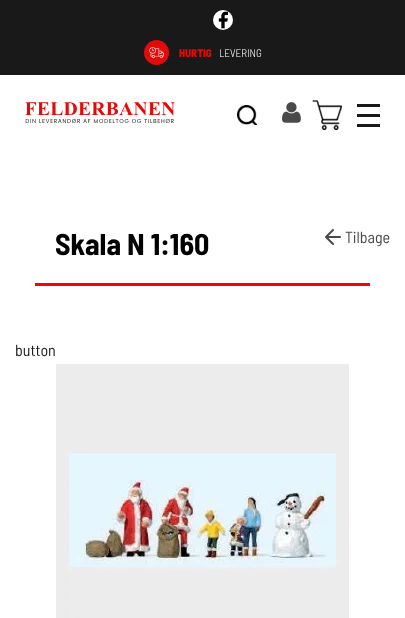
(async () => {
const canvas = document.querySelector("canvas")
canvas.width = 405
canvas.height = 618
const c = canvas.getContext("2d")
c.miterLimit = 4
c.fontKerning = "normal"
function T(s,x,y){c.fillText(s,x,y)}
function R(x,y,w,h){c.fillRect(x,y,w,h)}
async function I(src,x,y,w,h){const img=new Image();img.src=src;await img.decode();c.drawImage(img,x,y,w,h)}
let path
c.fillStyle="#fff"
R(0,0,405,618)
c.fillStyle="#191919"
R(0,0,405,75)
c.fillStyle="#fff"
c.beginPath()
c.arc(223,20,10,0,7)
c.fill()
await I("1.png",218,11,10,18)
c.fillStyle="#e30a0a"
c.beginPath()
c.arc(156.5,52.5,12.5,0,7)
c.fill()
await I("2.png",149,47,15,11)
c.font="800 11px Barlow Semi Condensed"
T("HURTIG",179,57)
c.font="300 11px Barlow Semi Condensed"
c.fillStyle="#fff"
T("LEVERING",219,57)
await I("3.png",25,102,150,21)
await I("4.png",237,105,20,20)
await I("5.png",282,102,19,21)
await I("6.png",312,100,30,30)
c.fillStyle="#191919"
R(357,104,23,3)
R(357,114,23,3)
R(357,124,23,3)
c.fillStyle="#f00"
R(35,283,335,3)
c.font="bold 30px Barlow Semi Condensed"
c.fillStyle="#000"
T("Skala N 1:160",55,255)
c.font="16px Barlow Semi Condensed"
c.fillStyle="#191919"
T("button",15,356)
await I("7.png",56,364,293,254)
path = new Path2D("M340 237h-14m7 7l-7-7l7-7")
c.strokeStyle="#4a4a4a"
c.lineWidth=2
c.lineCap="round"
c.lineJoin="round"
c.stroke(path)
c.fillStyle="#4a4a4a"
T("Tilbage",345,243)
})()
